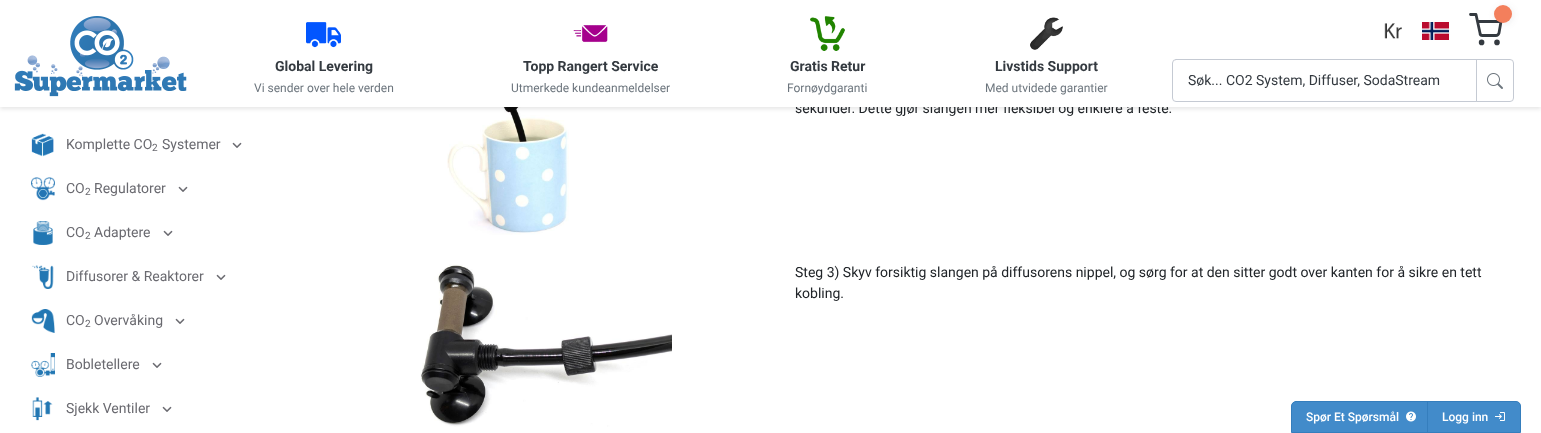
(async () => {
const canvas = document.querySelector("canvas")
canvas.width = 1541
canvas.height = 433
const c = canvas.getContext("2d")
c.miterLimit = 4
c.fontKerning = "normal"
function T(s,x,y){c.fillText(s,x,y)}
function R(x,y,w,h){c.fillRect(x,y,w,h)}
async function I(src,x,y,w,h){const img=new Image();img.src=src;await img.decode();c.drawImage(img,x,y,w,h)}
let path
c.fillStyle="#fff"
R(0,0,1541,433)
await I("17.png",447,107,122,128)
c.fillStyle="#0000001a"
c.filter="blur(2px)"
c.beginPath()
c.rect(0,2,1541,107)
c.fill()
c.filter="none"
c.font="14px Roboto"
c.fillStyle="#212529"
T("sekunder. Dette gjør slangen mer fleksibel og enklere å feste.",795,113)
c.fillStyle="#fff"
R(0,0,1541,107)
await I("1.png",14,16,173,81)
await I("2.png",306,22,35,26)
c.font="bold 14px Roboto"
c.fillStyle="#343a40"
T("Global Levering",275,71)
c.font="12px Roboto"
c.fillStyle="#6c757d"
T("Vi sender over hele verden",254,92)
await I("3.png",573,25,35,18)
c.font="bold 14px Roboto"
c.fillStyle="#343a40"
T("Topp Rangert Service",523,71)
c.font="12px Roboto"
c.fillStyle="#6c757d"
T("Utmerkede kundeanmeldelser",511,92)
await I("4.png",810,16,35,35)
c.font="bold 14px Roboto"
c.fillStyle="#343a40"
T("Gratis Retur",790,71)
c.font="12px Roboto"
c.fillStyle="#6c757d"
T("Fornøydgaranti",787,92)
await I("5.png",1030,17,33,33)
c.font="bold 14px Roboto"
c.fillStyle="#343a40"
T("Livstids Support",995,71)
c.font="12px Roboto"
c.fillStyle="#6c757d"
T("Med utvidede garantier",985,92)
await I("6.png",1384,23,18,16)
await I("7.png",1422,22,27,18)
path = new Path2D("M1470.5 14.5h5.5l4 18.5c0 1.5 1 2.5 2.5 2.5h13.5c1.5 0 2.5-1 3-2.5l2-11.5h-23.5")
c.strokeStyle="#343a40"
c.lineWidth=2.8
c.lineCap="round"
c.lineJoin="round"
c.stroke(path)
c.fillStyle="#38384017"
c.filter="blur(3.5px)"
c.beginPath()
c.roundRect(1495,6,18,18,9)
c.fill()
c.filter="none"
c.fillStyle="#f37f5c"
c.beginPath()
c.arc(1503,14,9,0,7)
c.fill()
c.beginPath()
c.arc(1481.6,42.4,1.4,0,7)
c.stroke()
c.beginPath()
c.arc(1497,42.4,1.4,0,7)
c.stroke()
c.beginPath()
c.roundRect(1172.5,59.5,304,42,[3.5,0,0,3.5])
c.strokeStyle="#c5cad3"
c.lineWidth=1
c.lineJoin="miter"
c.stroke()
c.font="14px Roboto"
c.fillStyle="#343a40"
T("Søk... CO2 System, Diffuser, SodaStream",1188,85)
c.beginPath()
c.roundRect(1476.5,59.5,37,42,[0,3.5,3.5,0])
c.stroke()
await I("8.png",1487,73,16,16)
await I("9.png",31,133,23,24)
c.fillStyle="#6a6a70"
T("Komplette CO",66,149)
c.font="10px Roboto"
T("2",152,151)
c.font="14px Roboto"
T("Systemer",162,149)
await I("10.png",232,142,10,6)
await I("11.png",31,177,24,24)
T("CO",66,193)
c.font="10px Roboto"
T("2",85,195)
c.font="14px Roboto"
T("Regulatorer",94,193)
await I("10.png",178,186,10,6)
await I("12.png",33,221,20,24)
T("CO",66,237)
c.font="10px Roboto"
T("2",85,239)
c.font="14px Roboto"
T("Adaptere",94,237)
await I("10.png",163,230,10,6)
await I("13.png",32,265,22,24)
T("Diffusorer & Reaktorer",66,281)
await I("10.png",216,274,10,6)
await I("14.png",31,309,24,24)
T("CO",66,325)
c.font="10px Roboto"
T("2",85,327)
c.font="14px Roboto"
T("Overvåking",94,325)
await I("10.png",175,318,10,6)
await I("15.png",31,353,24,24)
T("Bobletellere",66,369)
await I("10.png",152,362,10,6)
await I("16.png",32,397,21,24)
T("Sjekk Ventiler",66,413)
await I("10.png",162,406,10,6)
await I("18.png",420,264,252,163)
c.fillStyle="#212529"
T("Steg 3) Skyv forsiktig slangen på diffusorens nippel, og sørg for at den sitter godt over kanten for å sikre en tett",795,277)
T("kobling.",795,298)
c.fillStyle="#428bca"
c.beginPath()
c.roundRect(1291.5,401.5,140,31,[4.5,0,0,0])
c.fill()
c.strokeStyle="#357ebd"
c.stroke()
c.font="500 12px Roboto"
c.fillStyle="#fff"
T("Spør Et Spørsmål",1306,421)
await I("19.png",1406,411,10,11)
c.fillStyle="#428bca"
c.beginPath()
c.roundRect(1427.5,401.5,93,31,[0,4.5,0,0])
c.fill()
c.stroke()
c.fillStyle="#fff"
T("Logg inn",1442,421)
await I("20.png",1495,412,10,9)
})()
